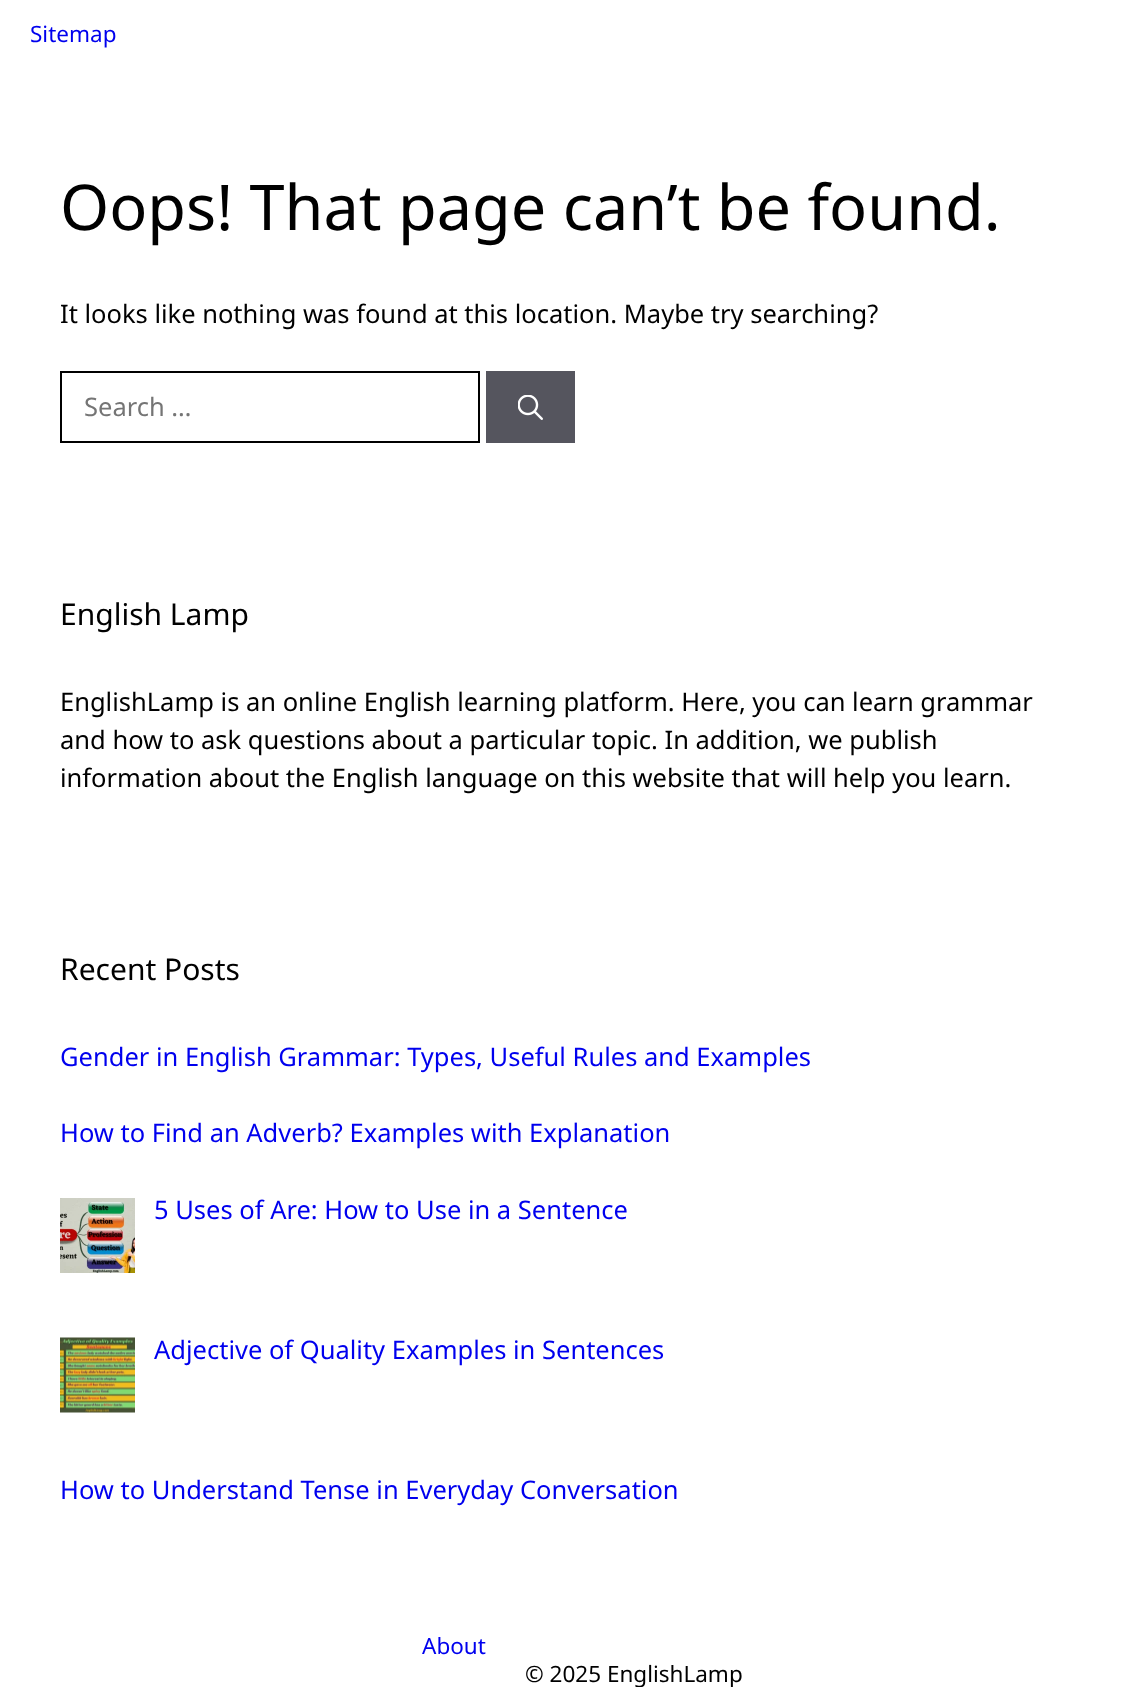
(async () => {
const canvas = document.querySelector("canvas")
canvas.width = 1126
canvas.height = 1687
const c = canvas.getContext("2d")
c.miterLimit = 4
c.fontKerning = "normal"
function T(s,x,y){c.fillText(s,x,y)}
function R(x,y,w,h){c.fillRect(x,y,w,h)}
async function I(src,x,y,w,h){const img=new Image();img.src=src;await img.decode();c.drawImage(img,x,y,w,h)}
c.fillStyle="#fff"
R(0,0,1126,1687)
c.font="22.5px Noto Sans"
c.fillStyle="#00e"
T("Sitemap",30,42)
c.font="63px Noto Sans"
c.fillStyle="#000"
T("Oops! That page can’t be found.",60,230)
c.font="25.5px Noto Sans"
T("It looks like nothing was found at this location. Maybe try searching?",60,323)
c.strokeStyle="#000"
c.lineWidth=2
c.strokeRect(61,372,418,70)
c.fillStyle="#757575"
T("Search …",84,416)
c.fillStyle="#55555e"
R(486,371,89,72)
await I("1.png",518,395,25,25)
c.font="30px Noto Sans"
c.fillStyle="#000"
T("English Lamp",60,625)
c.font="25.5px Noto Sans"
T("EnglishLamp is an online English learning platform. Here, you can learn grammar",60,711)
T("and how to ask questions about a particular topic. In addition, we publish",60,749)
T("information about the English language on this website that will help you learn.",60,787)
c.font="30px Noto Sans"
T("Recent Posts",60,980)
c.font="25.5px Noto Sans"
c.fillStyle="#00e"
T("Gender in English Grammar: Types, Useful Rules and Examples",60,1066)
T("How to Find an Adverb? Examples with Explanation",60,1142)
await I("2.png",60,1198,75,75)
T("5 Uses of Are: How to Use in a Sentence",154,1219)
await I("3.png",60,1337,75,76)
T("Adjective of Quality Examples in Sentences",154,1359)
T("How to Understand Tense in Everyday Conversation",60,1499)
c.font="22.5px Noto Sans"
T("About",422,1654)
c.fillStyle="#000"
T("© 2025 EnglishLamp",525,1682)
})()
